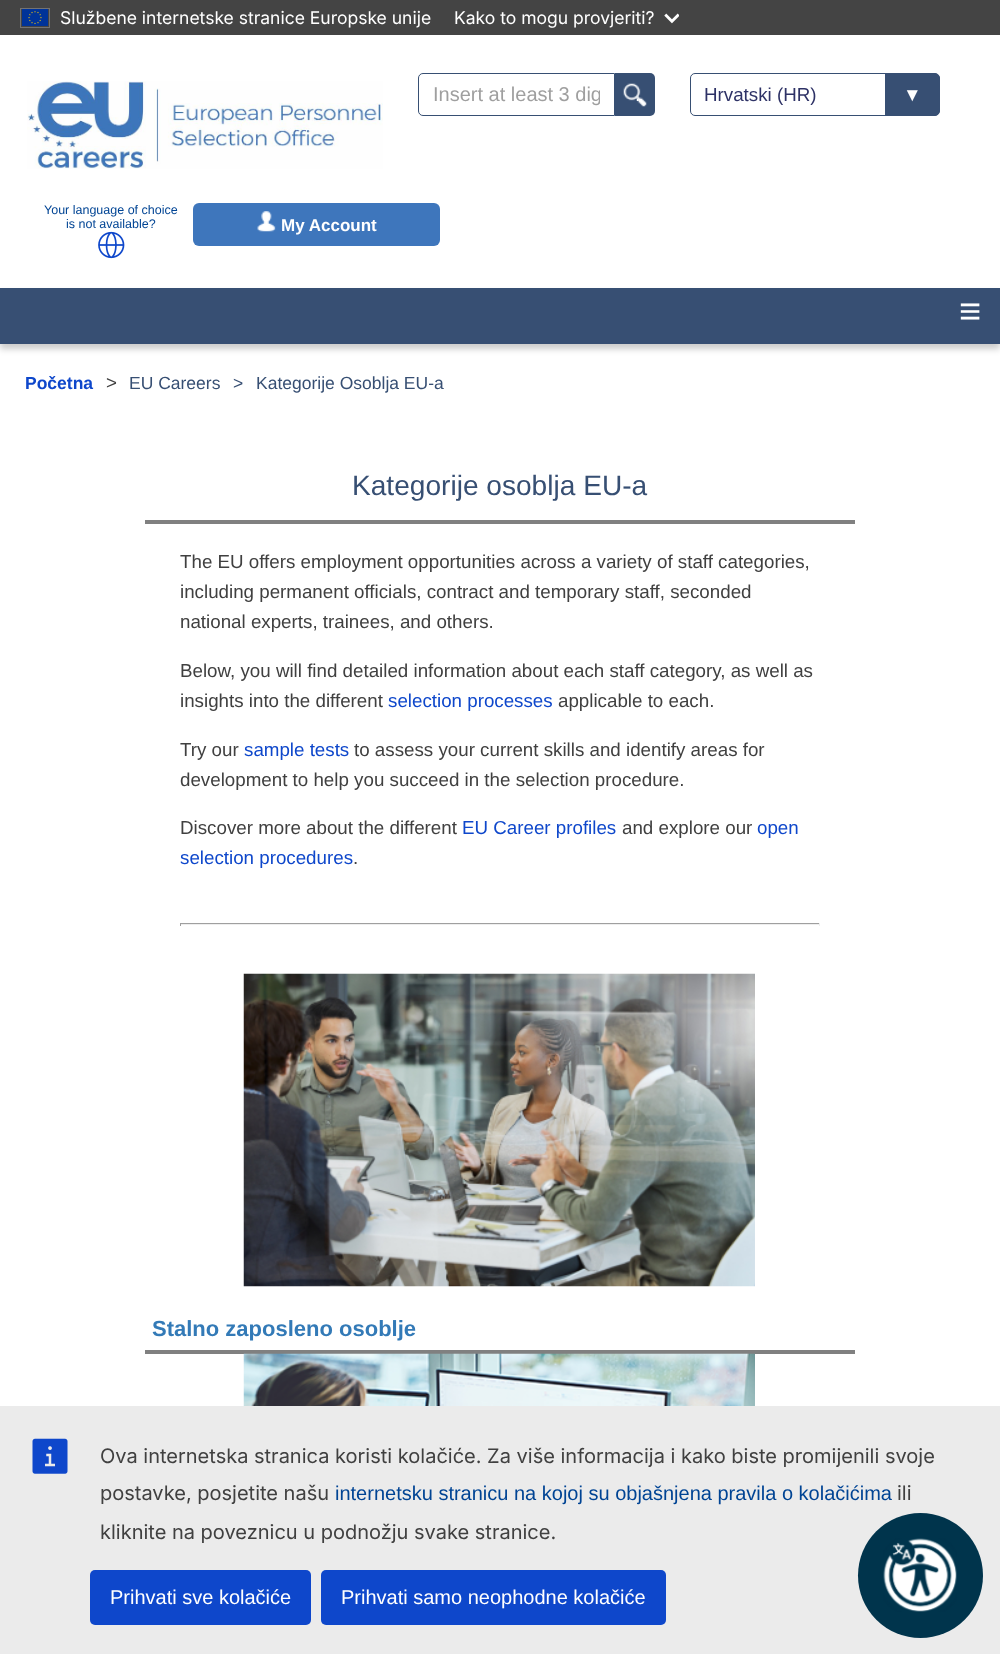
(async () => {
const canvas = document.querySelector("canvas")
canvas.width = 1000
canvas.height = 1654
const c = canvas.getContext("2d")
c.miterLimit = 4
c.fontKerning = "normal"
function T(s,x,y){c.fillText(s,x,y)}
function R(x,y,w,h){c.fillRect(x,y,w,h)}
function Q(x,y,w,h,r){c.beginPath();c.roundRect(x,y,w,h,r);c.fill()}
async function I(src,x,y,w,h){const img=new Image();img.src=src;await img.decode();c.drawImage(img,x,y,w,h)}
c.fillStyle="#fff"
R(0,0,1000,1654)
c.fillStyle="#444"
R(0,0,1000,35)
c.strokeStyle="#737373"
c.strokeRect(20.5,8.5,29,19)
await I("1.png",22,9,26,17)
c.font="17.5px Inter"
c.fillStyle="#fff"
T("Službene internetske stranice Europske unije",60,24)
T("Kako to mogu provjeriti?",454,24)
await I("2.png",664,13,15,11)
await I("3.png",27,81,356,88)
c.beginPath()
c.roundRect(418.5,73.5,196,42,[4.5,0,0,4.5])
c.strokeStyle="#374f73"
c.stroke()
c.save()
c.beginPath()
c.rect(433,84,167,22)
c.clip()
c.font="20px Liberation Sans"
c.fillStyle="#9f9f9f"
T("Insert at least 3 dig",433,101)
c.restore()
c.fillStyle="#374f73"
c.beginPath()
c.roundRect(615,73,40,43,[0,5,5,0])
c.fill()
await I("4.png",623,83,24,24)
c.font="20px Liberation Sans"
c.fillStyle="#fff"
T(".",635,101)
c.fillStyle="#374f73"
c.beginPath()
c.roundRect(885,73,55,43,[0,6,6,0])
c.fill()
c.beginPath()
c.roundRect(690.5,73.5,249,42,4.5)
c.stroke()
c.font="18.75px Liberation Sans"
c.fillStyle="#2e3266"
T("Hrvatski (HR)",704,101)
c.fillStyle="#fff"
T("▼",903,101)
c.font="12.5px Liberation Sans"
c.fillStyle="#004494"
T("Your language of choice",44,214)
T("is not available?",66,228)
await I("5.png",98,231,27,28)
c.fillStyle="#3e76bc"
Q(193,203,247,43,6)
await I("6.png",257,211,19,21)
c.font="bold 17px Liberation Sans"
c.fillStyle="#fff"
T("My Account",281,231)
c.fillStyle="#00000033"
c.filter="blur(3px)"
c.beginPath()
c.rect(0,293,1000,56)
c.fill()
c.filter="none"
c.fillStyle="#374f73"
R(0,288,1000,56)
c.font="bold 38px Liberation Sans"
c.fillStyle="#fff"
T("≡",959,324)
c.font="bold 17.5px Liberation Sans"
c.fillStyle="#0e47cb"
T("Početna",25,389)
c.font="18.75px Liberation Sans"
c.fillStyle="#404040"
T(">",106,389)
c.font="17.5px Liberation Sans"
c.fillStyle="#374f73"
T("EU Careers",129,389)
T(">",233,389)
T("Kategorije Osoblja EU-a",256,389)
c.fillStyle="#808080"
R(145,520,710,4)
c.font="28.1px Liberation Sans"
c.fillStyle="#374f73"
T("Kategorije osoblja EU-a",352,495)
c.font="18.75px Liberation Sans"
c.fillStyle="#404040"
T("The EU offers employment opportunities across a variety of staff categories,",180,568)
T("including permanent officials, contract and temporary staff, seconded",180,598)
T("national experts, trainees, and others.",180,628)
T("Below, you will find detailed information about each staff category, as well as",180,677)
T("insights into the different",180,707)
c.fillStyle="#0e47cb"
T("selection processes",388,707)
c.fillStyle="#404040"
T("applicable to each.",558,707)
T("Try our",180,756)
c.fillStyle="#0e47cb"
T("sample tests",244,756)
c.fillStyle="#404040"
T("to assess your current skills and identify areas for",354,756)
T("development to help you succeed in the selection procedure.",180,786)
T("Discover more about the different",180,834)
c.fillStyle="#0e47cb"
T("EU Career profiles",462,834)
c.fillStyle="#404040"
T("and explore our",622,834)
c.fillStyle="#0e47cb"
T("open",757,834)
T("selection procedures",180,864)
c.fillStyle="#404040"
T(".",353,864)
c.fillStyle="#9f9f9f"
R(180,923,640,1)
c.fillStyle="#eee"
R(819,923,1,3)
R(180,924,640,1)
c.fillStyle="#9f9f9f"
R(180,923,1,3)
await I("7.png",243,973,512,314)
c.fillStyle="#808080"
R(145,1350,710,4)
c.font="bold 22px Liberation Sans"
c.fillStyle="#337ab7"
T("Stalno zaposleno osoblje",152,1336)
await I("8.png",243,1353,512,53)
c.fillStyle="#ebebeb"
R(0,1406,1000,248)
c.fillStyle="#00344c"
c.beginPath()
c.arc(920.5,1575.5,62.5,0,7)
c.fill()
await I("9.png",883,1538,74,74)
await I("10.png",32,1438,36,36)
c.font="20px Inter"
c.fillStyle="#404040"
T("Ova internetska stranica koristi kolačiće. Za više informacija i kako biste promijenili svoje",100,1463)
T("postavke, posjetite našu",100,1500)
c.font="20px Liberation Sans"
c.fillStyle="#004494"
T("internetsku stranicu na kojoj su objašnjena pravila o kolačićima",335,1500)
c.font="20px Inter"
c.fillStyle="#404040"
T("ili",897,1500)
T("kliknite na poveznicu u podnožju svake stranice.",100,1539)
c.fillStyle="#0e47cb"
Q(90,1570,221,55,5)
c.font="20px Liberation Sans"
c.fillStyle="#fff"
T("Prihvati sve kolačiće",110,1604)
c.fillStyle="#0e47cb"
Q(321,1570,345,55,5)
c.fillStyle="#fff"
T("Prihvati samo neophodne kolačiće",341,1604)
})()
